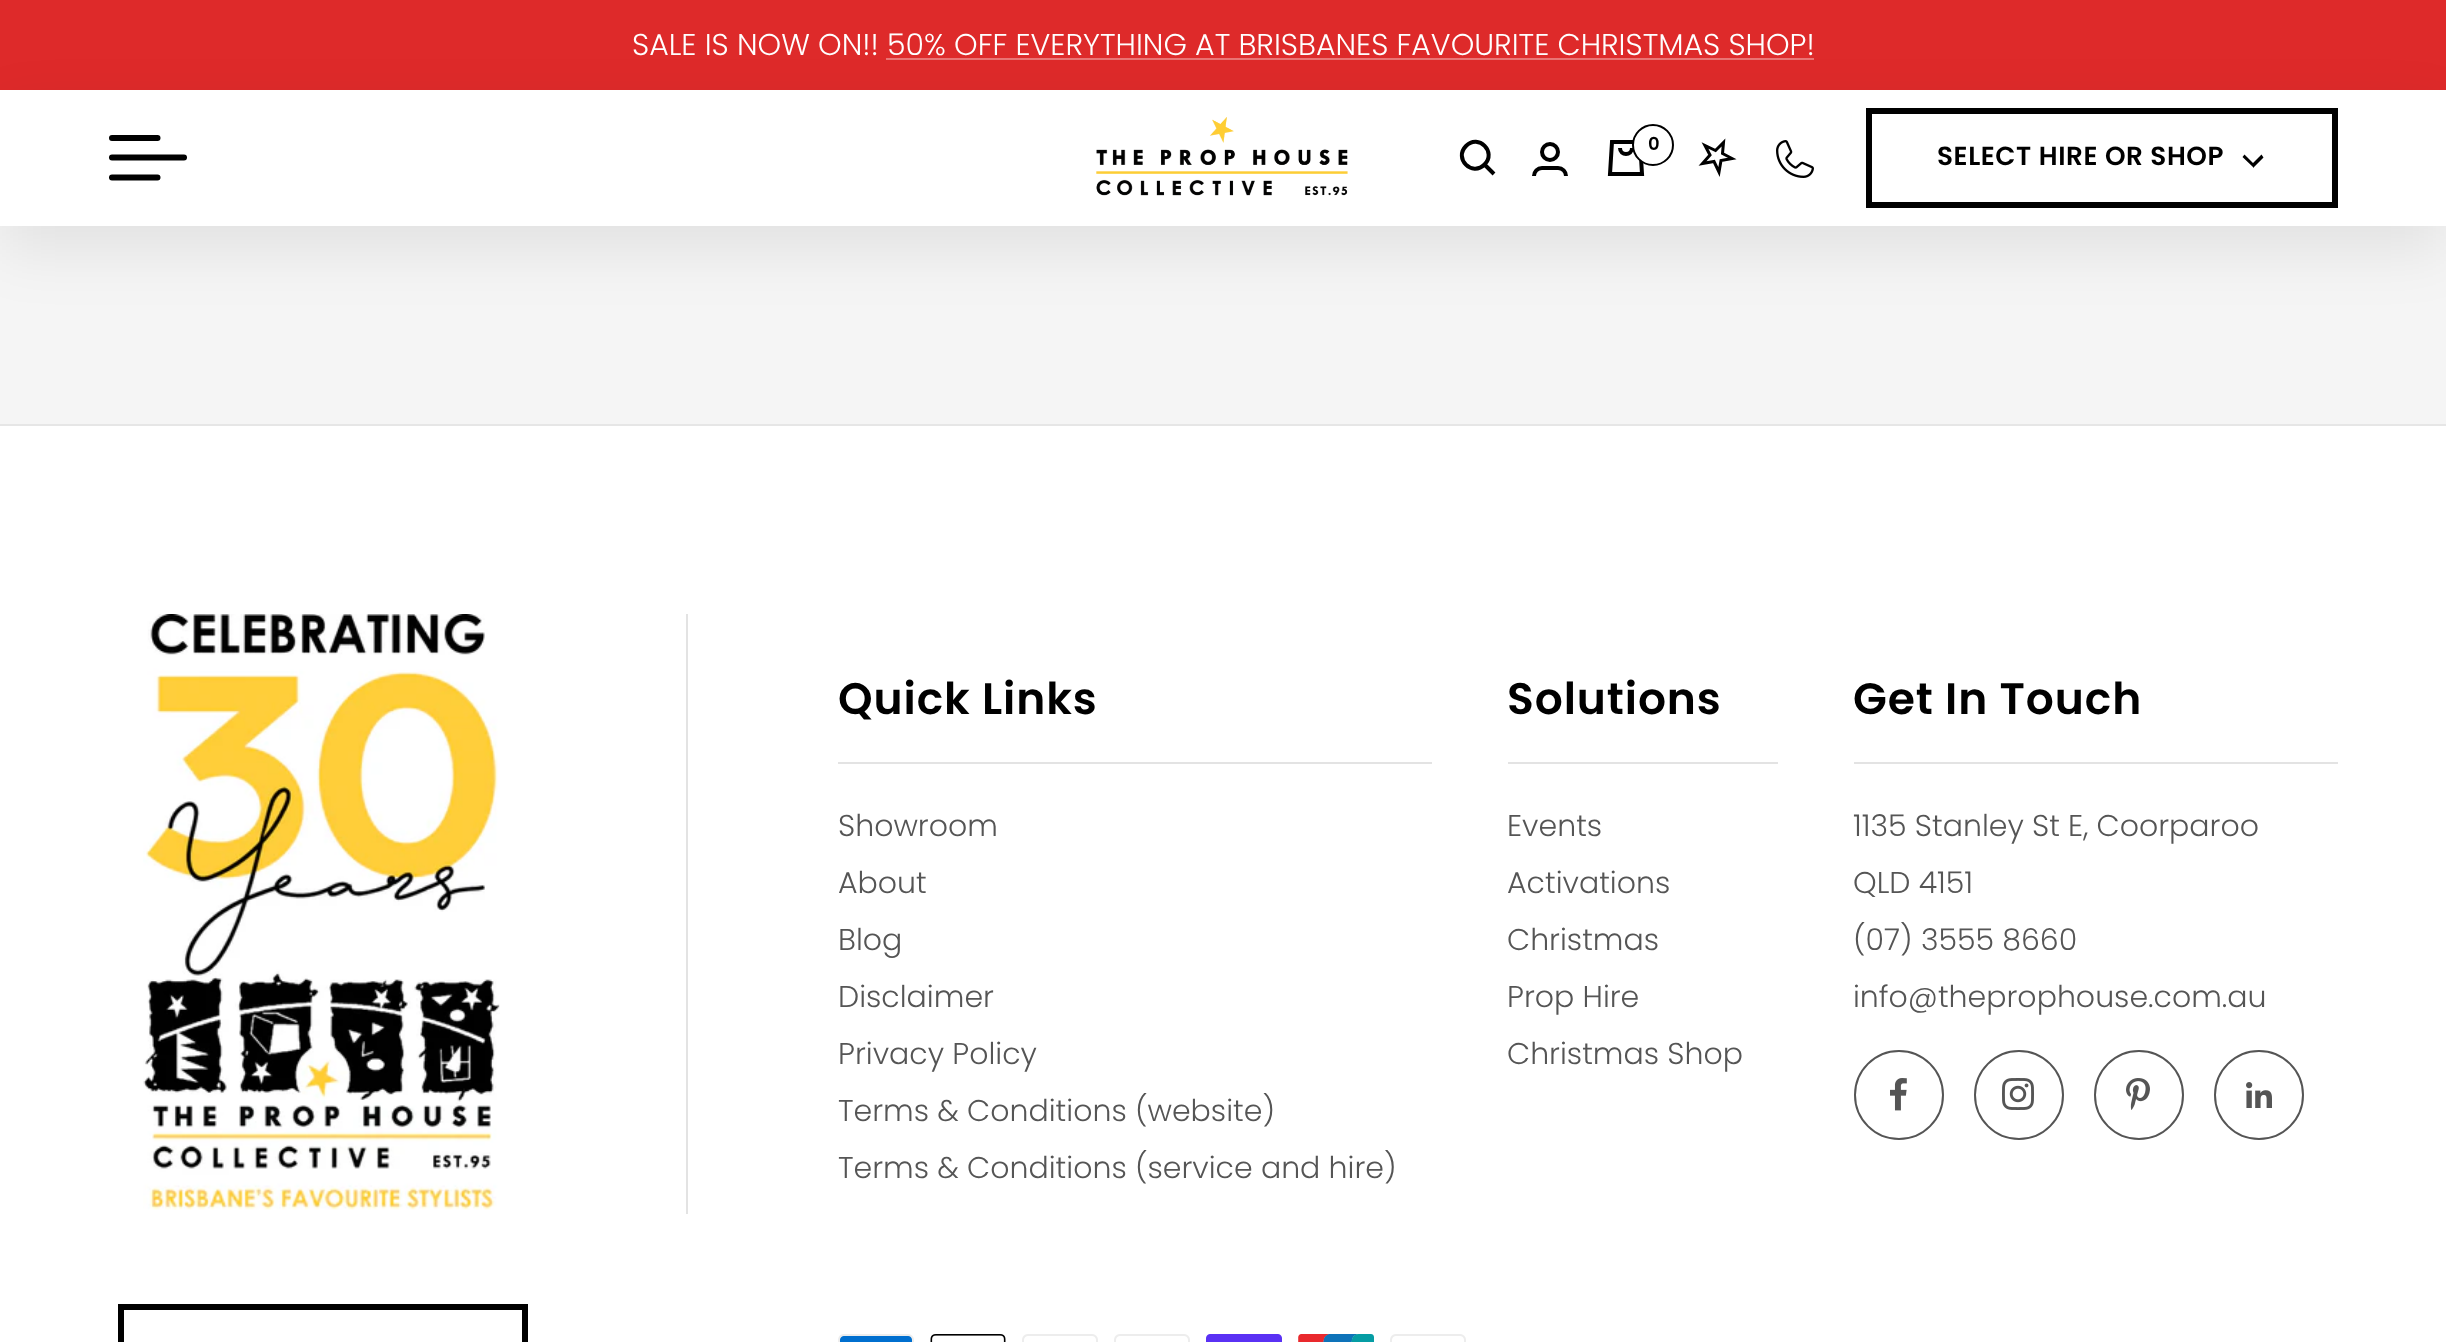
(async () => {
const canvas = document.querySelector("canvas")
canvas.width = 2446
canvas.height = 1342
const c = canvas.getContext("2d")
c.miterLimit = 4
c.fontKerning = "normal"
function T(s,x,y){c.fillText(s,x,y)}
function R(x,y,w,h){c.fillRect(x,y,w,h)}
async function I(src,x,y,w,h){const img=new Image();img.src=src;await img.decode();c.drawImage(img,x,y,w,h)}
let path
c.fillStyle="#fff"
R(0,0,2446,1342)
c.fillStyle="#de2a2a"
R(0,0,2446,90)
c.font="300 30px Poppins"
c.fillStyle="#fff"
T("SALE IS NOW ON!! 50% OFF EVERYTHING AT BRISBANES FAVOURITE CHRISTMAS SHOP!",632,55)
c.fillStyle="#ea7575"
R(886,58,928,2)
c.fillStyle="#f5f5f5"
R(0,226,2446,198)
c.fillStyle="#00000014"
c.filter="blur(30px)"
c.beginPath()
c.rect(0,114,2446,136)
c.fill()
c.filter="none"
c.fillStyle="#fff"
R(0,90,2446,136)
path = new Path2D("M112 138h45.5m-45.5 39.5h45.5")
c.strokeStyle="#000"
c.lineWidth=6
c.lineCap="round"
c.lineJoin="round"
c.stroke(path)
path = new Path2D("M112 157.5h72")
c.stroke(path)
await I("1.png",1096,117,252,79)
path = new Path2D("M1484.5 164.5c12.5-12.5-6-31-18.5-18.5c-12.5 12.5 6 31 18.5 18.5zm0 0l9.5 9.5")
c.lineWidth=4
c.lineCap="butt"
c.lineJoin="miter"
c.stroke(path)
c.beginPath()
c.arc(1550,152,8,0,7)
c.stroke()
path = new Path2D("M1534 176c0-4.5 3.5-8 8-8h16c4.5 0 8 3.5 8 8")
c.stroke(path)
path = new Path2D("M1612 142h28l2 32h-32zm8 6c0 8 12 8 12 0")
c.stroke(path)
c.beginPath()
c.arc(1653,145,20,0,7)
c.fill()
c.lineWidth=2
c.stroke()
c.font="600 18px Poppins"
c.fillStyle="#000"
T("0",1648,150)
path = new Path2D("M1710 155l-5-9.5l10.5 5l8-8l-1 11l9.5 5l-11 2l-2 11.5l-5-10.5l-11.5 2z")
c.lineWidth=3
c.stroke(path)
await I("2.png",1776,140,38,38)
path = new Path2D("M2253 167l-10.5-10l2-2.5l8.5 8.5l8.5-8.5l2 3l-10.5 10.5z")
c.fill(path)
c.lineWidth=6
c.strokeRect(1869,111,466,94)
c.letterSpacing="0.6px"
c.font="600 26.25px Poppins"
T("SELECT HIRE OR SHOP",1937,165)
c.fillStyle="#e6e6e6"
R(0,424,2446,2)
await I("3.png",143,614,357,596)
c.strokeRect(121,1307,404,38)
c.fillStyle="#e3e3e3"
R(686,614,2,600)
R(838,762,594,2)
c.letterSpacing="0.9px"
c.font="600 44px Poppins"
c.fillStyle="#000"
T("Quick Links",838,714)
c.letterSpacing="0px"
c.font="300 30px Poppins"
c.fillStyle="#555"
T("Showroom",838,836)
T("About",838,893)
T("Blog",838,950)
T("Disclaimer",838,1007)
T("Privacy Policy",838,1064)
T("Terms & Conditions (website)",838,1121)
T("Terms & Conditions (service and hire)",838,1178)
c.fillStyle="#e3e3e3"
R(1508,762,270,2)
c.letterSpacing="0.9px"
c.font="600 44px Poppins"
c.fillStyle="#000"
T("Solutions",1507,714)
c.letterSpacing="0px"
c.font="300 30px Poppins"
c.fillStyle="#555"
T("Events",1507,836)
T("Activations",1507,893)
T("Christmas",1507,950)
T("Prop Hire",1507,1007)
T("Christmas Shop",1507,1064)
c.fillStyle="#e3e3e3"
R(1854,762,484,2)
c.letterSpacing="0.9px"
c.font="600 44px Poppins"
c.fillStyle="#000"
T("Get In Touch",1853,714)
c.letterSpacing="0px"
c.font="300 30px Poppins"
c.fillStyle="#555"
T("1135 Stanley St E, Coorparoo",1853,836)
T("QLD 4151",1853,893)
T("(07) 3555 8660",1853,950)
T("info@theprophouse.com.au",1853,1007)
c.beginPath()
c.arc(1899,1095,44,0,7)
c.strokeStyle="#555"
c.lineWidth=2
c.stroke()
await I("4.png",1890,1078,17,33)
c.beginPath()
c.arc(2019,1095,44,0,7)
c.stroke()
await I("5.png",2002,1078,32,32)
c.beginPath()
c.arc(2139,1095,44,0,7)
c.stroke()
await I("6.png",2126,1078,24,32)
c.beginPath()
c.arc(2259,1095,44,0,7)
c.stroke()
await I("7.png",2246,1082,26,26)
await I("8.png",838,1334,76,8)
await I("9.png",930,1334,76,8)
await I("10.png",1022,1334,76,8)
await I("10.png",1114,1334,76,8)
await I("11.png",1206,1334,76,8)
await I("12.png",1298,1334,76,8)
await I("10.png",1390,1334,76,8)
})()
